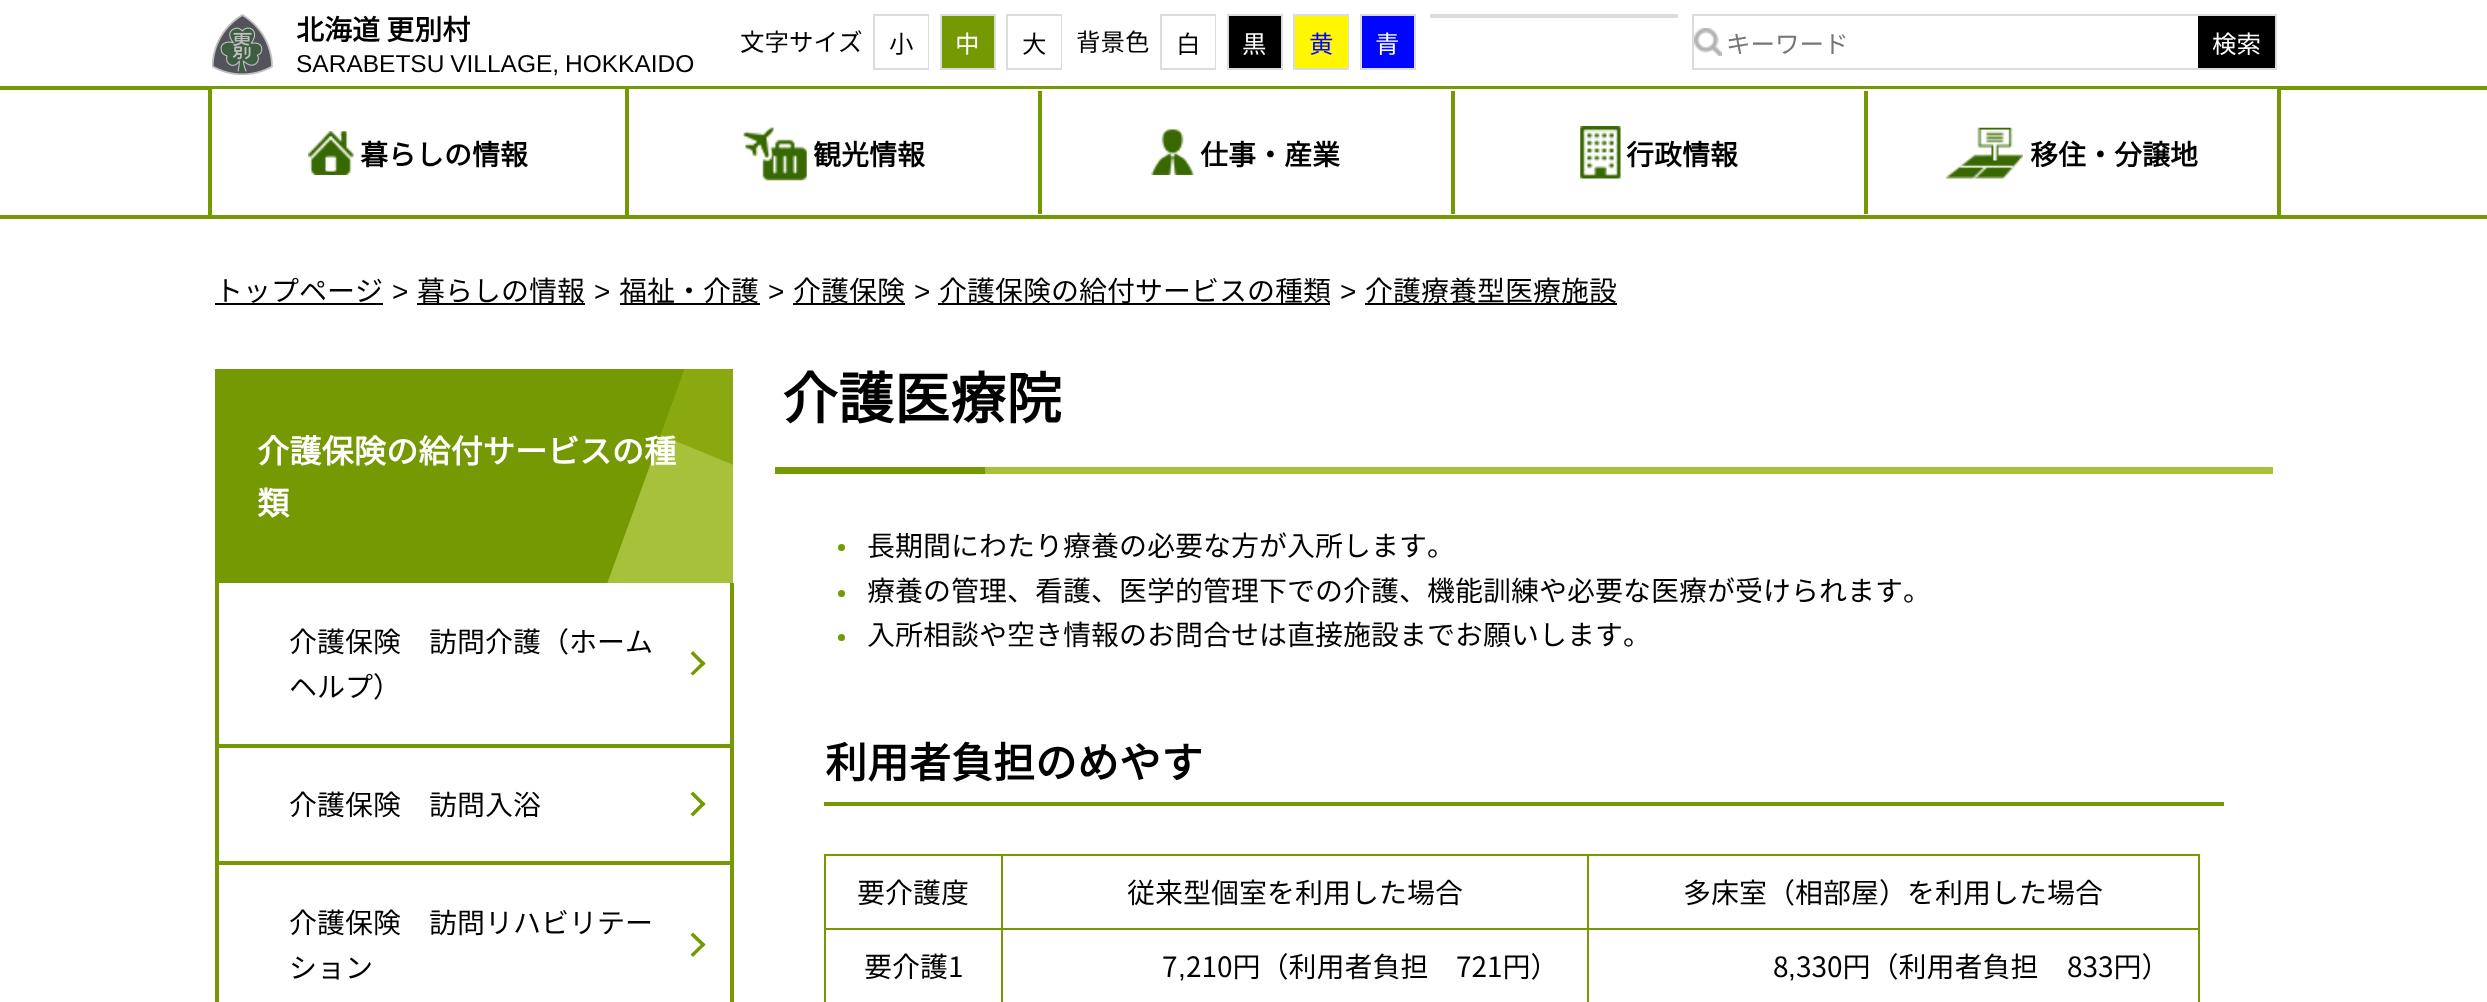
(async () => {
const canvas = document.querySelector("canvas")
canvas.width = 2487
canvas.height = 1002
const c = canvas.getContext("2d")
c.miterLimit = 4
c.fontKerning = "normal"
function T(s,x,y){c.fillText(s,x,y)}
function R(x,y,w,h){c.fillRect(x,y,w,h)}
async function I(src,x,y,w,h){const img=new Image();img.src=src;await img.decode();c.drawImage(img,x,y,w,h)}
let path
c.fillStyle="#fff"
R(0,0,2487,1002)
await I("1.png",212,14,61,61)
c.font="bold 28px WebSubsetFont"
c.fillStyle="#000"
T("北海道 更別村",296,40)
c.wordSpacing="-1px"
c.font="24.5px Liberation Sans"
T("SARABETSU VILLAGE, HOKKAIDO",296,72)
c.fillStyle="#dcdcdc"
R(1430,14,248,4)
c.wordSpacing="0px"
c.font="24.5px WebSubsetFont"
c.fillStyle="#000"
T("文字サイズ",740,51)
c.strokeStyle="#dcdcdc"
c.lineWidth=2
c.strokeRect(874,15,54,54)
c.fillStyle="#fff"
R(927,16,1,52)
c.fillStyle="#000"
T("小",889,53)
c.strokeRect(941,15,54,54)
c.fillStyle="#759903"
R(942,16,52,52)
c.fillStyle="#fff"
T("中",955,53)
c.strokeRect(1007,15,54,54)
R(1060,16,1,52)
c.fillStyle="#000"
T("大",1022,53)
T("背景色",1076,51)
c.strokeRect(1161,15,54,54)
c.fillStyle="#fff"
R(1214,16,1,52)
c.fillStyle="#000"
T("白",1176,53)
c.strokeRect(1228,15,54,54)
R(1229,16,52,52)
c.fillStyle="#fff"
T("黒",1242,53)
c.strokeRect(1294,15,54,54)
c.fillStyle="#fff700"
R(1295,16,53,52)
c.fillStyle="#0005ff"
T("黄",1309,53)
c.strokeRect(1361,15,54,54)
R(1362,16,52,52)
c.fillStyle="#fff"
T("青",1375,53)
c.strokeRect(1693,15,583,54)
await I("2.png",1694,28,28,28)
c.fillStyle="#757575"
T("キーワード",1726,53)
c.fillStyle="#000"
R(2198,16,77,52)
c.fillStyle="#fff"
T("検索",2212,53)
c.fillStyle="#759903"
R(0,86,2487,4)
R(0,215,2487,4)
c.fillStyle="#fff"
R(212,89,2065,1)
c.fillStyle="#759903"
R(2277,89,4,126)
R(208,89,4,126)
await I("3.png",308,131,46,44)
c.font="bold 28px WebSubsetFont"
c.fillStyle="#000"
T("暮らしの情報",360,165)
c.fillStyle="#759903"
R(625,89,4,126)
await I("4.png",743,127,64,54)
c.fillStyle="#000"
T("観光情報",813,165)
c.fillStyle="#759903"
R(1038,91,4,123)
await I("5.png",1151,129,43,46)
c.fillStyle="#000"
T("仕事・産業",1200,165)
c.fillStyle="#759903"
R(1451,91,4,123)
await I("6.png",1580,126,41,53)
c.fillStyle="#000"
T("行政情報",1626,165)
c.fillStyle="#759903"
R(1864,91,4,123)
await I("7.png",1946,127,77,52)
c.fillStyle="#000"
T("移住・分譲地",2030,165)
R(215,303,168,2)
c.font="28px WebSubsetFont"
T("トップページ",215,301)
c.font="28px Liberation Sans"
T(">",392,301)
R(417,303,168,2)
c.font="28px WebSubsetFont"
T("暮らしの情報",417,301)
c.font="28px Liberation Sans"
T(">",594,301)
R(620,303,140,2)
c.font="28px WebSubsetFont"
T("福祉・介護",619,301)
c.font="28px Liberation Sans"
T(">",768,301)
R(793,303,112,2)
c.font="28px WebSubsetFont"
T("介護保険",793,301)
c.font="28px Liberation Sans"
T(">",914,301)
R(938,303,392,2)
c.font="28px WebSubsetFont"
T("介護保険の給付サービスの種類",939,301)
c.font="28px Liberation Sans"
T(">",1340,301)
R(1365,303,252,2)
c.font="28px WebSubsetFont"
T("介護療養型医療施設",1365,301)
c.fillStyle="#a7c13a"
R(607,369,126,214)
c.save()
c.beginPath()
c.rect(215,369,518,214)
c.clip()
c.fillStyle="#759903"
path = new Path2D("M167 369h518l-78 215h-518z")
c.fill(path)
c.fillStyle="#8aa910"
path = new Path2D("M696 337l86 35l-36 98l-85-35z")
c.fill(path)
c.restore()
c.font="bold 32.25px WebSubsetFont"
c.fillStyle="#fff"
T("介護保険の給付サービスの種",257,463)
T("類",257,515)
c.fillStyle="#759903"
R(730,583,4,161)
R(215,583,4,161)
c.font="28px WebSubsetFont"
c.fillStyle="#000"
T("介護保険",289,652)
T("訪問介護（ホーム",429,652)
c.fillStyle="#759903"
path = new Path2D("M693 651l12.5 12.5l-2.5 2.5l-12.5-12.5z")
c.fill(path)
path = new Path2D("M703 661l2.5 2.5l-12.5 12l-2.5-2z")
c.fill(path)
c.fillStyle="#000"
T("ヘルプ）",289,697)
c.fillStyle="#759903"
R(215,744,518,4)
R(730,744,4,117)
R(215,744,4,117)
c.fillStyle="#000"
T("介護保険",289,815)
T("訪問入浴",429,815)
c.fillStyle="#759903"
path = new Path2D("M693 791.5l12.5 12.5l-2.5 2.5l-12.5-12.5z")
c.fill(path)
path = new Path2D("M703 801.5l2.5 2.5l-12.5 12.5l-2.5-2.5z")
c.fill(path)
R(215,861,518,4)
R(730,861,4,141)
R(215,861,4,141)
c.fillStyle="#000"
T("介護保険",289,933)
T("訪問リハビリテー",429,933)
c.fillStyle="#759903"
path = new Path2D("M693 932.5l12.5 12l-2.5 2.5l-12.5-12z")
c.fill(path)
path = new Path2D("M703 942.5l2.5 2l-12.5 12.5l-2.5-2.5z")
c.fill(path)
c.fillStyle="#000"
T("ション",289,978)
c.fillStyle="#a7c13a"
R(985,467,1288,7)
c.font="bold 56px WebSubsetFont"
c.fillStyle="#000"
T("介護医療院",782,419)
c.fillStyle="#759903"
R(775,467,210,7)
c.beginPath()
c.arc(841.5,547.5,3.5,0,7)
c.fill()
c.font="28px WebSubsetFont"
c.fillStyle="#000"
T("長期間にわたり療養の必要な方が入所します。",867,556)
c.fillStyle="#759903"
c.beginPath()
c.arc(841.5,593.5,3.5,0,7)
c.fill()
c.fillStyle="#000"
T("療養の管理、看護、医学的管理下での介護、機能訓練や必要な医療が受けられます。",867,601)
c.fillStyle="#759903"
c.beginPath()
c.arc(841.5,637.5,3.5,0,7)
c.fill()
c.fillStyle="#000"
T("入所相談や空き情報のお問合せは直接施設までお願いします。",867,645)
c.fillStyle="#759903"
R(824,802,1400,4)
c.font="bold 42px WebSubsetFont"
c.fillStyle="#000"
T("利用者負担のめやす",825,778)
c.fillStyle="#759903"
R(1587,854,613,2)
R(1587,928,613,2)
R(1587,928,2,74)
R(1001,928,588,2)
R(1587,854,2,75)
R(1001,854,588,2)
R(1001,928,2,74)
R(824,928,179,2)
R(1001,854,2,75)
R(824,854,179,2)
R(824,928,2,74)
R(824,854,2,75)
c.font="28px WebSubsetFont"
c.fillStyle="#000"
T("要介護度",857,903)
T("従来型個室を利用した場合",1127,903)
c.fillStyle="#759903"
R(2198,928,2,74)
R(2198,854,2,75)
c.fillStyle="#000"
T("多床室（相部屋）を利用した場合",1683,903)
T("要介護1",864,977)
T("7",1162,977)
c.font="28px Liberation Sans"
T(",",1178,977)
c.font="28px WebSubsetFont"
T("210円（利用者負担",1186,977)
T("721円）",1456,977)
T("8",1773,977)
c.font="28px Liberation Sans"
T(",",1788,977)
c.font="28px WebSubsetFont"
T("330円（利用者負担",1796,977)
T("833円）",2067,977)
})()
